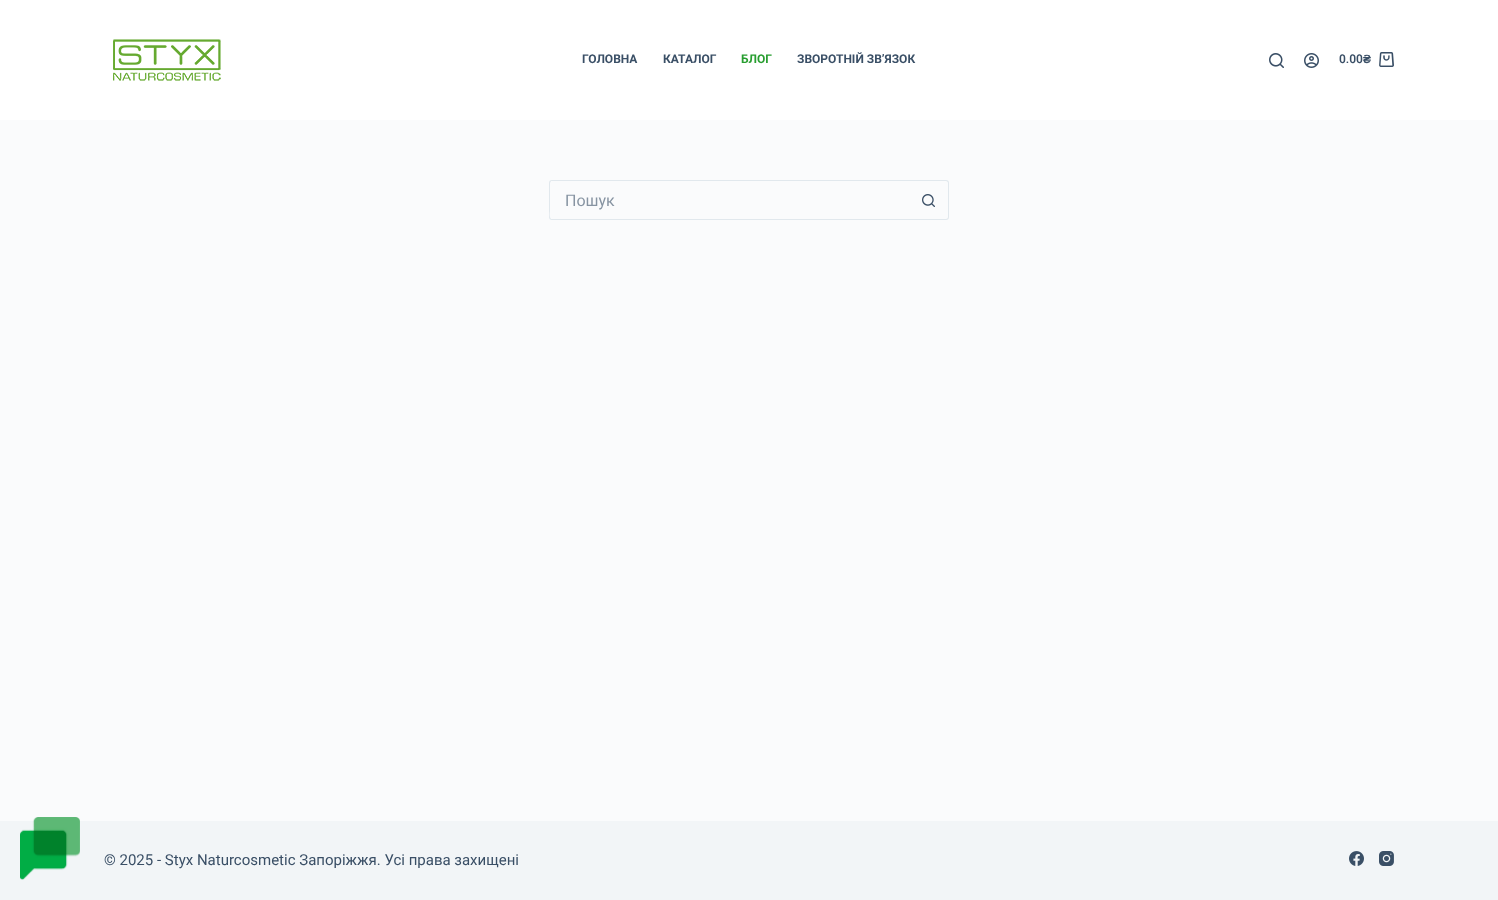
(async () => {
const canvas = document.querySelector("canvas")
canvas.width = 1498
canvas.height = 900
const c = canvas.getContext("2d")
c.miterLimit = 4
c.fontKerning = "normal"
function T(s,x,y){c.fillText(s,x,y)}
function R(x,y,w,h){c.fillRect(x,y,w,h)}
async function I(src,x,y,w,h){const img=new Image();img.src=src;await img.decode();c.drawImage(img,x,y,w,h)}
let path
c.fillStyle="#fafbfc"
R(0,0,1498,900)
c.fillStyle="#f2f5f7"
R(0,821,1498,79)
await I("1.png",20,817,60,63)
c.fillStyle="#fff"
R(0,0,1498,120)
await I("2.png",113,39,108,42)
c.font="bold 12px Roboto"
c.fillStyle="#3a4f66"
T("ГОЛОВНА",582,63)
T("КАТАЛОГ",663,63)
c.fillStyle="#289e30"
T("БЛОГ",741,63)
c.fillStyle="#3a4f66"
T("ЗВОРОТНІЙ ЗВ’ЯЗОК",797,63)
await I("3.png",1269,53,15,15)
await I("4.png",1304,53,15,15)
c.font="600 12px Roboto"
T("0.00",1339,63)
c.font="bold 12px Liberation Sans"
T("₴",1363,63)
await I("5.png",1379,52,15,15)
c.fillStyle="#e1e8ed"
path = new Path2D("M552 180h357v40h-357c-2 0-3-1-3-3v-34c0-2 1-3 3-3zm0 1h357v38h-358c-2-2-1-7-1-8v-28l1-2z")
c.fill(path,"evenodd")
c.font="16px Roboto"
c.fillStyle="#8794a2"
T("Пошук",565,206)
c.fillStyle="#e1e8ed"
path = new Path2D("M909 180h37c2 0 3 1 3 3v34c0 2-1 3-3 3h-37zm0 1h37c1 0 2 1 2 2v34c0 1-1 2-2 2h-37z")
c.fill(path,"evenodd")
await I("6.png",922,194,13,13)
c.font="15px Roboto"
c.fillStyle="#3a4f66"
T("© 2025 - Styx Naturcosmetic Запоріжжя. Усі права захищені",104,865)
await I("7.png",1349,851,15,15)
await I("8.png",1379,851,15,15)
})()
